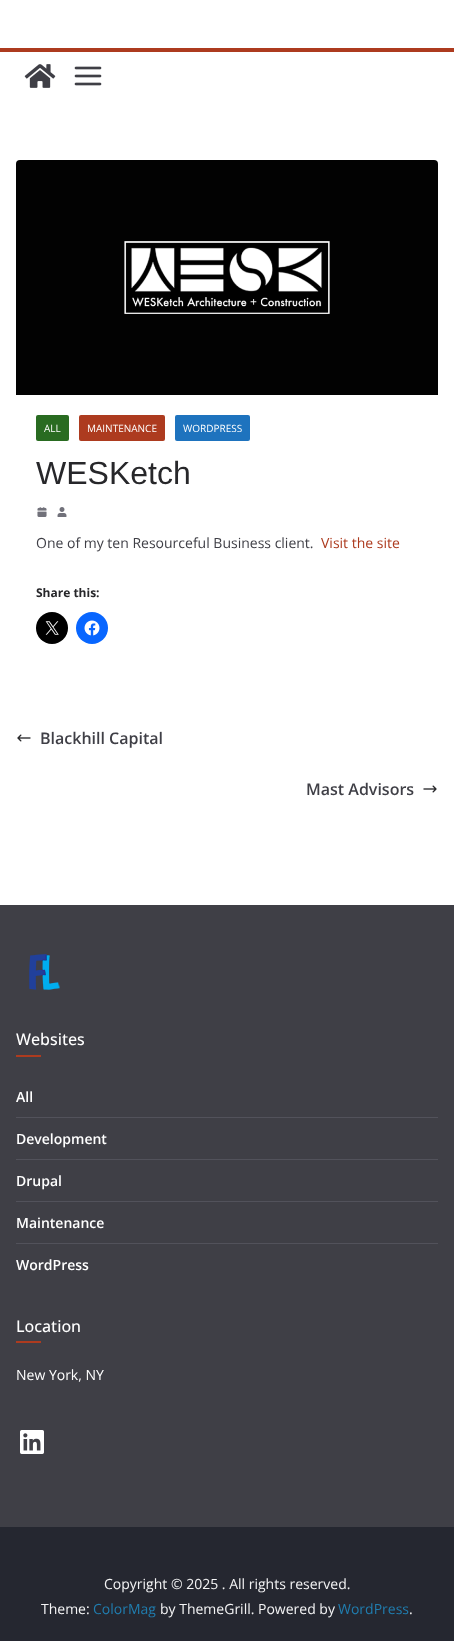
(async () => {
const canvas = document.querySelector("canvas")
canvas.width = 454
canvas.height = 1641
const c = canvas.getContext("2d")
c.miterLimit = 4
c.fontKerning = "normal"
function T(s,x,y){c.fillText(s,x,y)}
function R(x,y,w,h){c.fillRect(x,y,w,h)}
function Q(x,y,w,h,r){c.beginPath();c.roundRect(x,y,w,h,r);c.fill()}
async function I(src,x,y,w,h){const img=new Image();img.src=src;await img.decode();c.drawImage(img,x,y,w,h)}
c.fillStyle="#fff"
R(0,0,454,1641)
c.fillStyle="#ad3b1f"
R(0,48,454,4)
await I("1.png",24,64,32,24)
await I("2.png",74,66,28,20)
await I("3.png",16,160,422,235)
c.fillStyle="#296b21"
Q(36,415,33,26,2)
c.font="10px Open Sans"
c.fillStyle="#fff"
T("ALL",44,432)
c.fillStyle="#ad3b1f"
Q(79,415,86,26,2)
c.fillStyle="#fff"
T("MAINTENANCE",87,432)
c.fillStyle="#1e73be"
Q(175,415,75,26,2)
c.fillStyle="#fff"
T("WORDPRESS",183,432)
c.font="32px Liberation Sans"
c.fillStyle="#27272a"
T("WESKetch",36,484)
await I("4.png",37,507,10,10)
await I("5.png",57,507,10,10)
c.font="14px Open Sans"
c.fillStyle="#3f3f46"
T("One of my ten Resourceful Business client.",36,548)
c.fillStyle="#ad3b1f"
T("Visit the site",321,548)
c.font="bold 12px Open Sans"
c.fillStyle="#27272a"
T("Share this:",36,597)
c.fillStyle="#000"
c.beginPath()
c.arc(52,628,16,0,7)
c.fill()
await I("6.png",45,621,14,14)
c.fillStyle="#0866ff"
c.beginPath()
c.arc(92,628,16,0,7)
c.fill()
await I("7.png",84,620,16,16)
await I("8.png",17,734,14,8)
c.font="600 16px Open Sans"
c.fillStyle="#3f3f46"
T("Blackhill Capital",40,744)
T("Mast Advisors",306,795)
await I("9.png",423,785,14,8)
R(0,905,454,622)
await I("10.png",29,954,31,36)
c.font="500 16px Open Sans"
c.fillStyle="#fff"
T("Websites",16,1045)
c.fillStyle="#ad3b1f"
R(16,1055,25,2)
c.fillStyle="#52525b"
R(16,1117,422,1)
c.font="600 14px Open Sans"
c.fillStyle="#fff"
T("All",16,1102)
c.fillStyle="#52525b"
R(16,1159,422,1)
c.fillStyle="#fff"
T("Development",16,1144)
c.fillStyle="#52525b"
R(16,1201,422,1)
c.fillStyle="#fff"
T("Drupal",16,1186)
c.fillStyle="#52525b"
R(16,1243,422,1)
c.fillStyle="#fff"
T("Maintenance",16,1228)
T("WordPress",16,1270)
c.font="500 16px Open Sans"
T("Location",16,1332)
c.fillStyle="#ad3b1f"
R(16,1341,25,2)
c.font="14px Open Sans"
c.fillStyle="#fff"
T("New York, NY",16,1380)
await I("11.png",20,1430,24,24)
c.fillStyle="#252730"
R(0,1527,454,114)
c.fillStyle="#f4f4f5"
T("Copyright © 2025 . All rights reserved.",104,1589)
T("Theme:",41,1614)
c.fillStyle="#207daf"
T("ColorMag",93,1614)
c.fillStyle="#f4f4f5"
T("by ThemeGrill. Powered by",160,1614)
c.fillStyle="#207daf"
T("WordPress",338,1614)
c.fillStyle="#f4f4f5"
T(".",409,1614)
})()
